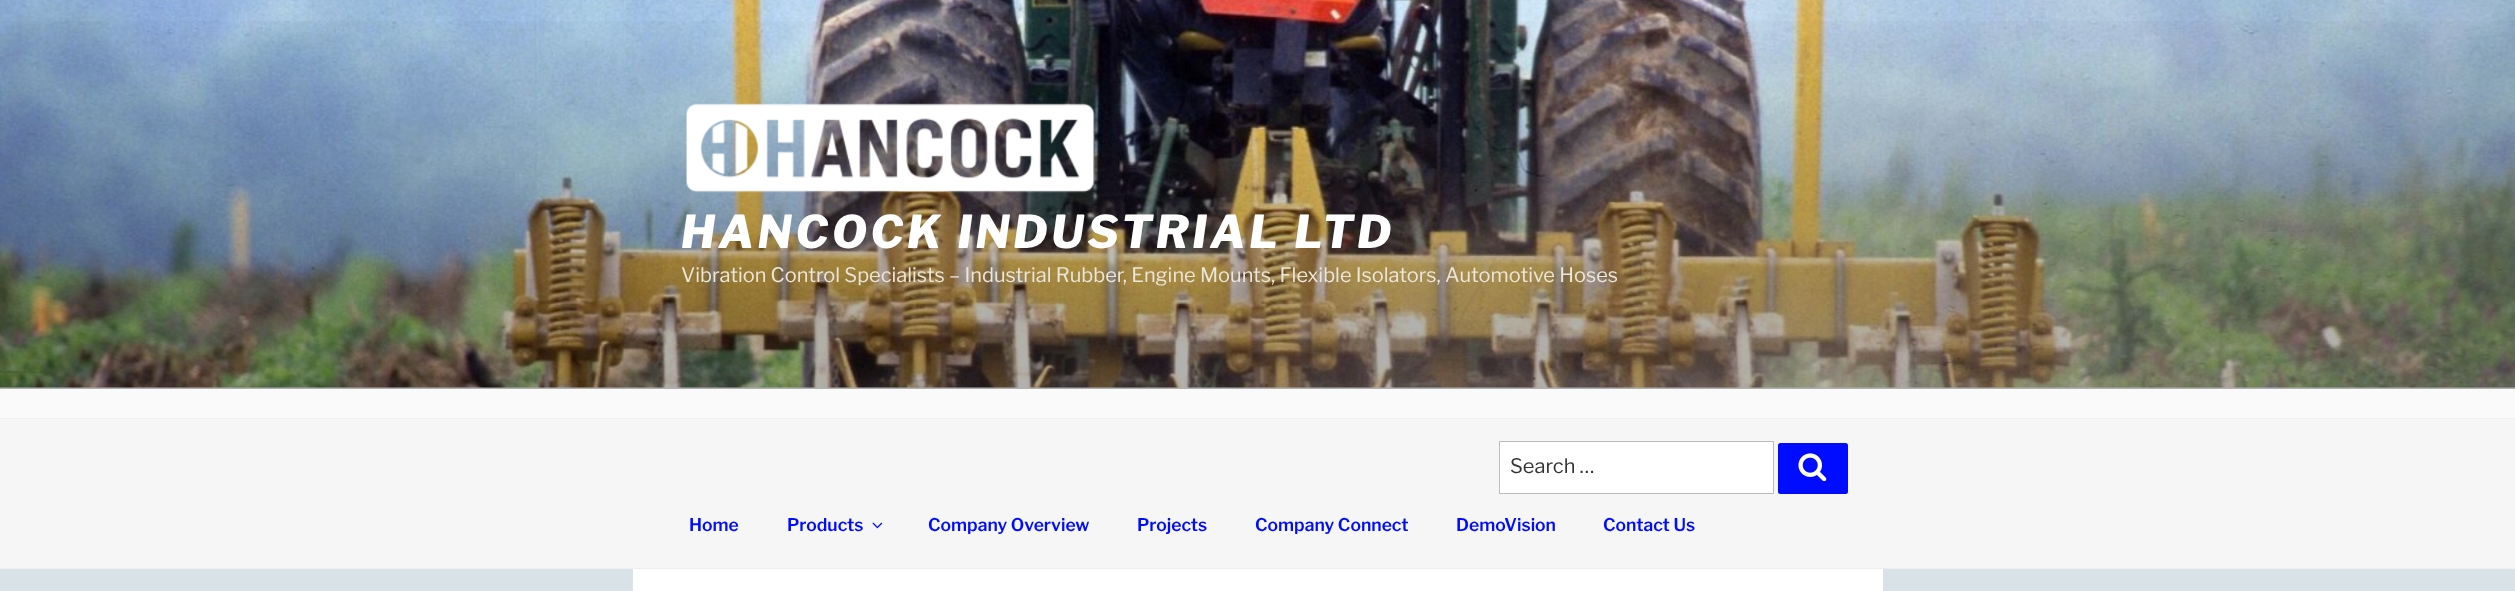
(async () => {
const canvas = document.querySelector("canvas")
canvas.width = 2515
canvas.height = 591
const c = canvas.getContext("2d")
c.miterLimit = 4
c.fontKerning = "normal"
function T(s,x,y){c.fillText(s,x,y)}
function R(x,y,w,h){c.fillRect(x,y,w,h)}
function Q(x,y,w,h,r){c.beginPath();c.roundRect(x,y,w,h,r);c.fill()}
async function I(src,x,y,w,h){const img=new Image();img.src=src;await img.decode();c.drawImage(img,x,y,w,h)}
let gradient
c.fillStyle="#fafafa"
R(0,0,2515,591)
await I("1.png",0,0,2515,388)
gradient = c.createLinearGradient(1258,0,1258,389)
gradient.addColorStop(0,"#00000000")
gradient.addColorStop(.75,"#0000004d")
gradient.addColorStop(1,"#0000004d")
c.fillStyle = gradient
R(0,21,2515,368)
await I("2.png",686,103,409,90)
c.letterSpacing="3.6px"
c.font="italic 800 45px Libre Franklin"
c.fillStyle="#fff"
T("HANCOCK INDUSTRIAL LTD",681,248)
c.letterSpacing="0px"
c.font="20px Libre Franklin"
c.fillStyle="#ebe6db"
T("Vibration Control Specialists – Industrial Rubber, Engine Mounts, Flexible Isolators, Automotive Hoses",681,282)
c.fillStyle="#f6f6f6"
R(0,419,2515,149)
c.fillStyle="#eee"
R(0,418,2515,1)
R(0,568,2515,1)
c.fillStyle="#fff"
c.beginPath()
c.rect(1499.5,441.5,274,52)
c.fill()
c.strokeStyle="#bbb"
c.stroke()
c.fillStyle="#333"
T("Search …",1510,473)
c.fillStyle="#000cff"
Q(1778,443,70,51,2.5)
await I("3.png",1798,453,29,28)
c.font="600 17.5px Libre Franklin"
T("Home",689,531)
T("Products",787,531)
await I("4.png",872,522,11,7)
T("Company Overview",928,531)
T("Projects",1137,531)
T("Company Connect",1255,531)
T("DemoVision",1456,531)
T("Contact Us",1603,531)
c.fillStyle="#d8e2e7"
R(0,569,2515,22)
c.fillStyle="#fff"
R(633,569,1250,22)
})()
